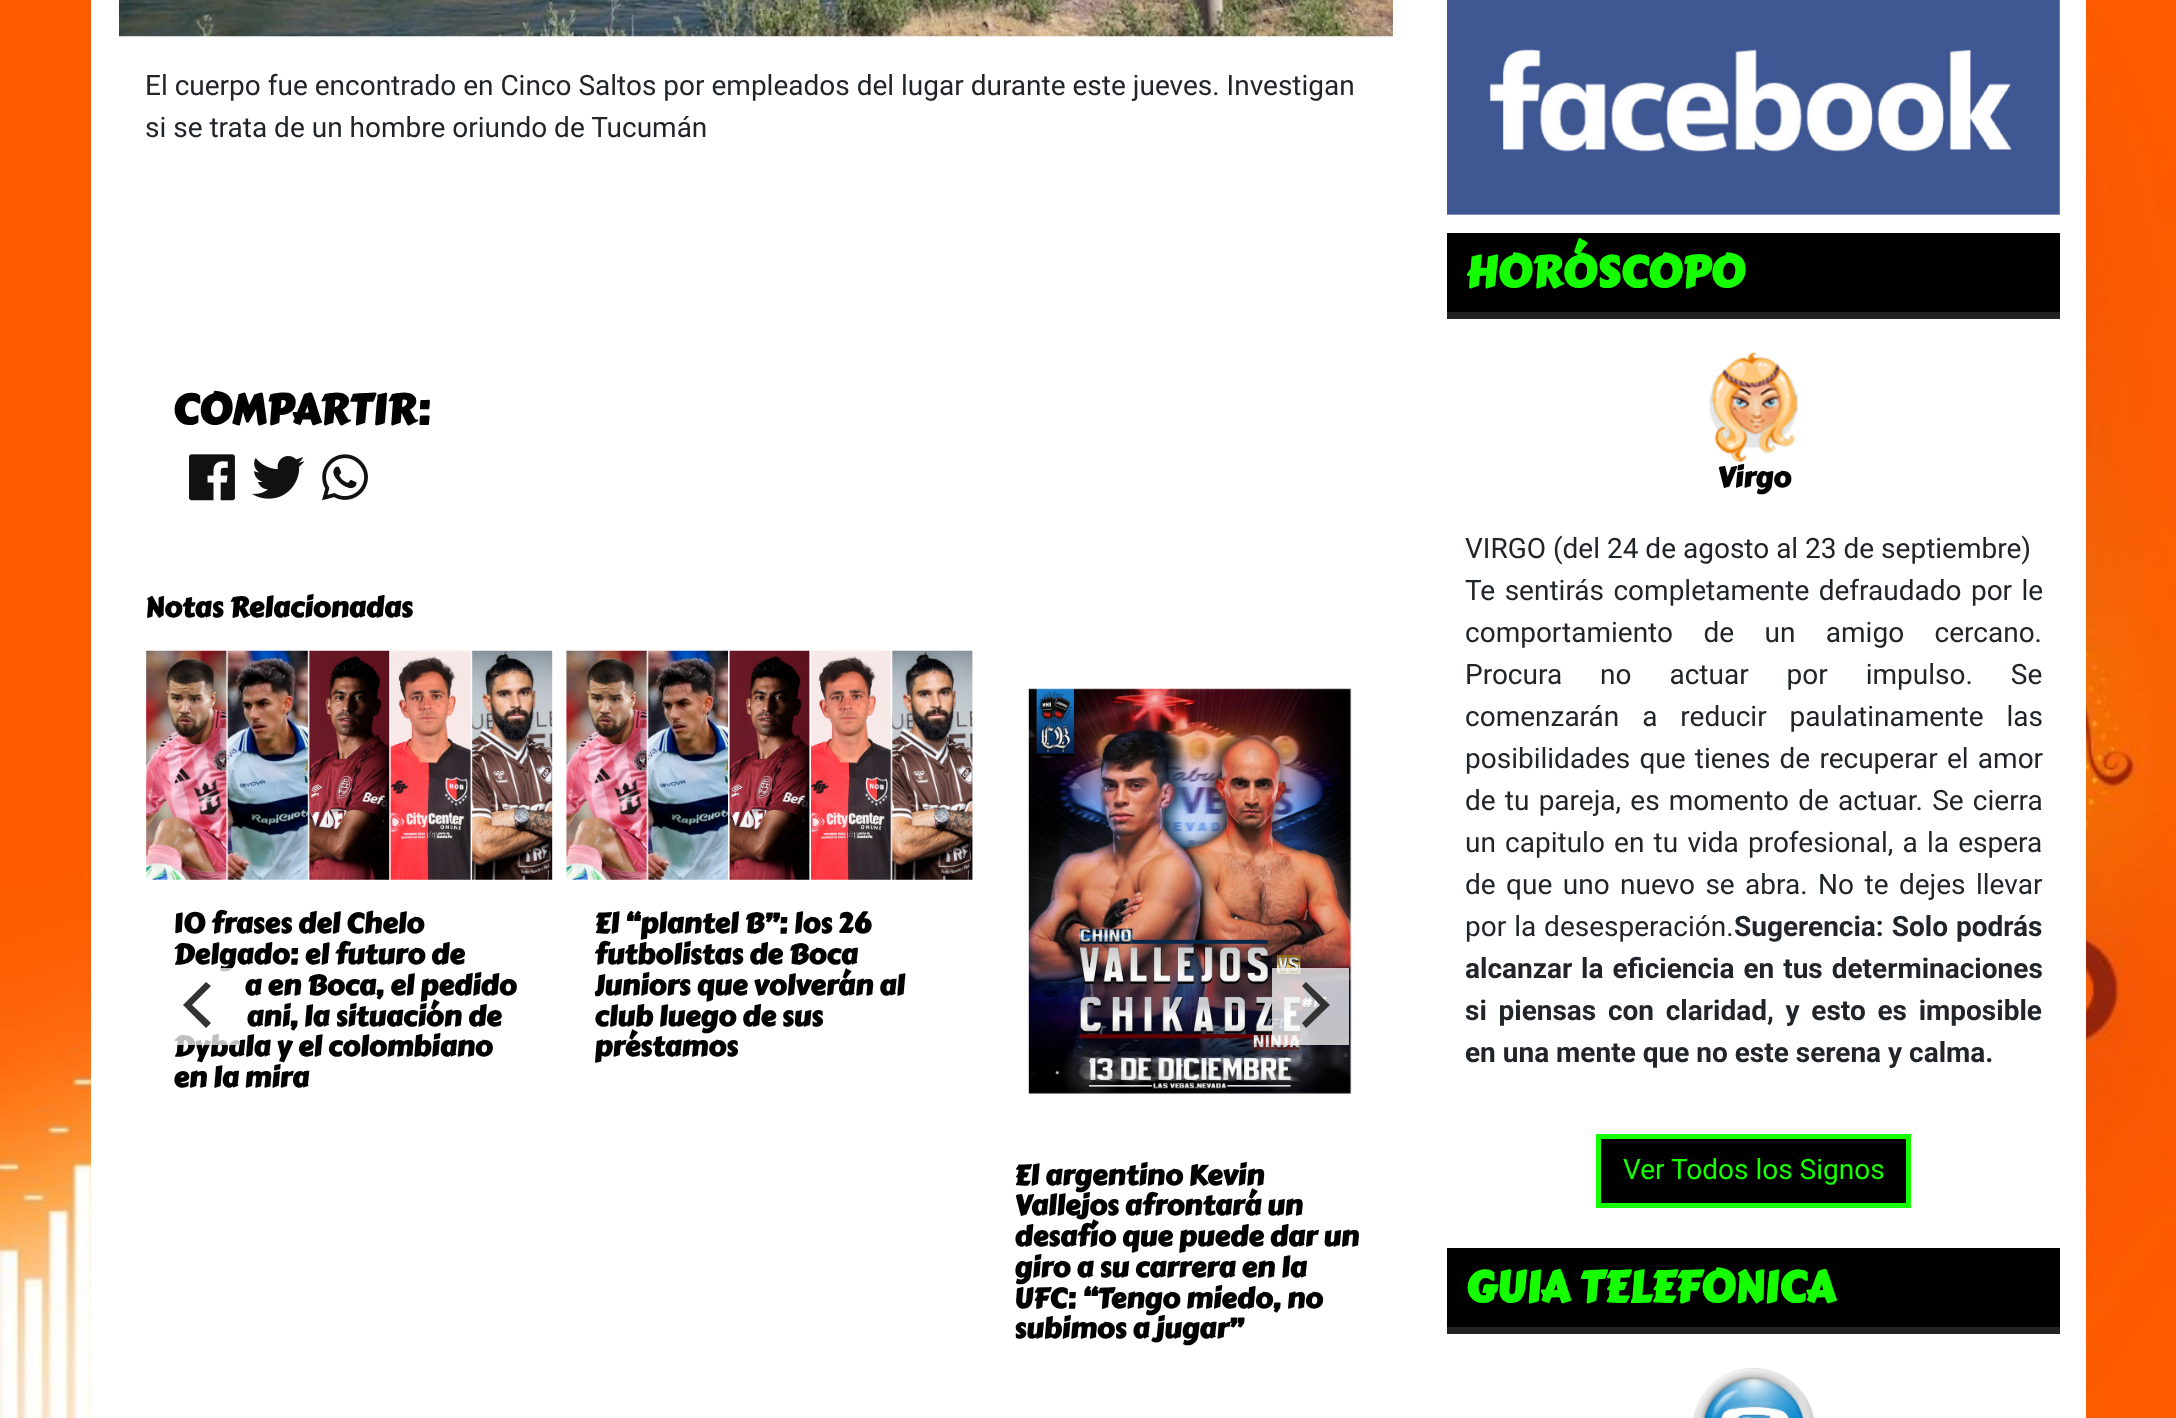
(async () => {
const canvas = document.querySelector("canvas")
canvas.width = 2176
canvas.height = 1418
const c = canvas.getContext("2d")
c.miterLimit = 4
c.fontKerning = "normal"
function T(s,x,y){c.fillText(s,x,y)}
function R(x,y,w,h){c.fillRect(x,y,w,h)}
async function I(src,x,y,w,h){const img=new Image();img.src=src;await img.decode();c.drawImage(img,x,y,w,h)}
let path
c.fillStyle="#fff"
R(0,0,2176,1418)
await I("1.png",0,0,2176,1418)
R(91,0,1995,1418)
await I("2.png",119,0,1274,37)
c.font="28px Roboto"
c.fillStyle="#212529"
T("El cuerpo fue encontrado en Cinco Saltos por empleados del lugar durante este jueves. Investigan",145,95)
T("si se trata de un hombre oriundo de Tucumán",145,137)
c.font="bold 42px Carter One"
c.fillStyle="#010101"
T("COMPARTIR:",172,424)
await I("3.png",189,454,46,47)
await I("4.png",252,456,53,43)
await I("5.png",322,454,46,47)
c.font="bold 28px Carter One"
T("Notas Relacionadas",145,617)
await I("6.png",146,650,407,230)
T("10 frases del Chelo",173,933)
T("Delgado: el futuro de",173,964)
T("a en Boca, el pedido",244,995)
T("ani, la situación de",246,1026)
T("Dybala y el colombiano",173,1056)
T("en la mira",173,1087)
await I("7.png",566,650,407,230)
T("El “plantel B”: los 26",594,933)
T("futbolistas de Boca",594,964)
T("Juniors que volverán al",594,995)
T("club luego de sus",594,1026)
T("préstamos",594,1056)
await I("8.png",1028,688,324,406)
T("El argentino Kevin",1014,1185)
T("Vallejos afrontará un",1014,1215)
T("desafío que puede dar un",1014,1246)
T("giro a su carrera en la",1014,1277)
T("UFC: “Tengo miedo, no",1014,1308)
T("subimos a jugar”",1014,1338)
c.fillStyle="#ffffffbf"
R(174,968,66,77)
c.fillStyle="#333"
path = new Path2D("M183 1005l23 23l5-5l-19-18l19-19l-5-4z")
c.fill(path)
c.fillStyle="#ffffffbf"
R(1272,968,77,77)
c.fillStyle="#333"
path = new Path2D("M1330 1005l-24-23l-4 4l18 19l-18 18l4 5z")
c.fill(path)
await I("9.png",1447,0,613,215)
c.fillStyle="#000"
R(1447,233,613,79)
c.fillStyle="#222"
R(1447,312,613,7)
c.font="bold 43.75px Carter One"
c.fillStyle="#16ff01"
T("HORÓSCOPO",1465,287)
await I("10.png",1709,352,89,111)
c.font="bold 28px Carter One"
c.fillStyle="#010101"
T("Virgo",1717,487)
c.font="28px Roboto"
c.fillStyle="#212529"
T("VIRGO (del 24 de agosto al 23 de septiembre)",1465,558)
c.wordSpacing="2.5px"
T("Te sentirás completamente defraudado por le",1465,600)
c.wordSpacing="23.5px"
T("comportamiento de un amigo cercano.",1465,642)
c.wordSpacing="31px"
T("Procura no actuar por impulso. Se",1465,684)
c.wordSpacing="16px"
T("comenzarán a reducir paulatinamente las",1465,726)
c.wordSpacing="2.25px"
T("posibilidades que tienes de recuperar el amor",1465,768)
T("de tu pareja, es momento de actuar. Se cierra",1465,810)
T("un capitulo en tu vida profesional, a la espera",1465,852)
c.wordSpacing="3.5px"
T("de que uno nuevo se abra. No te dejes llevar",1465,894)
c.wordSpacing="1px"
T("por la desesperación.",1465,936)
c.font="bold 28px Roboto"
T("Sugerencia: Solo podrás",1734,936)
c.wordSpacing="2px"
T("alcanzar la eficiencia en tus determinaciones",1465,978)
c.wordSpacing="4.75px"
T("si piensas con claridad, y esto es imposible",1465,1020)
c.wordSpacing="0px"
T("en una mente que no este serena y calma.",1465,1062)
c.fillStyle="#000"
c.beginPath()
c.rect(1598.5,1136.5,310,69)
c.fill()
c.strokeStyle="#16ff01"
c.lineWidth=5
c.stroke()
c.font="28px Roboto"
c.fillStyle="#16ff01"
T("Ver Todos los Signos",1623,1179)
c.fillStyle="#000"
R(1447,1248,613,79)
c.fillStyle="#222"
R(1447,1327,613,7)
c.font="bold 43.75px Carter One"
c.fillStyle="#16ff01"
T("GUIA TELEFONICA",1465,1302)
await I("11.png",1693,1368,122,50)
})()
